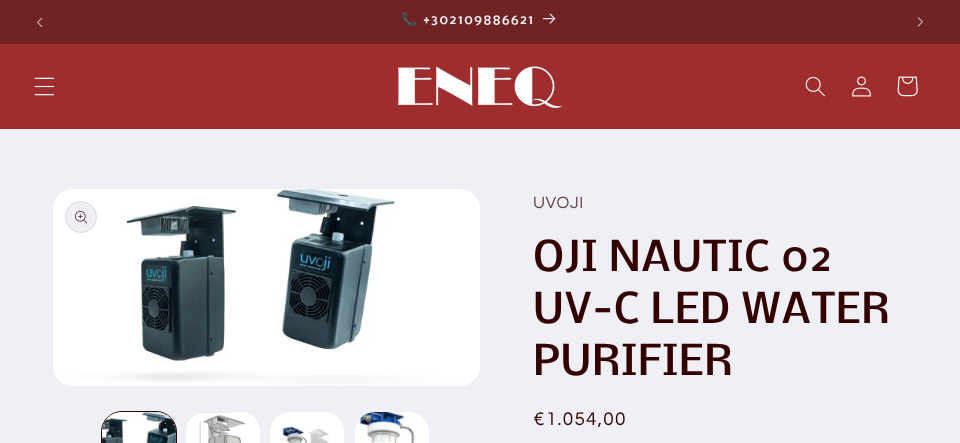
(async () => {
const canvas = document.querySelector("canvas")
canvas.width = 960
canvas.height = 443
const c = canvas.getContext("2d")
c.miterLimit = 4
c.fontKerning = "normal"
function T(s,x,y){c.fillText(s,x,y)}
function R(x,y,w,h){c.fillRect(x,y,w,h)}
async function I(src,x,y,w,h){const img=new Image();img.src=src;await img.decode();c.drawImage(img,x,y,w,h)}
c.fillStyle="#eff0f5"
R(0,0,960,443)
c.fillStyle="#6f2323"
R(0,0,960,44)
await I("1.png",37,17,6,10)
c.letterSpacing="1px"
c.font="13px Noto Color Emoji"
c.fillStyle="#eff0f5"
T("📞",401,24)
c.font="500 13px Nobile"
T("+302109886621",423,24)
await I("2.png",543,13,13,11)
await I("3.png",917,17,6,10)
c.fillStyle="#9f2d2d"
R(0,44,960,85)
await I("4.png",34,77,20,19)
await I("5.png",398,66,165,42)
await I("6.png",805,76,20,21)
await I("7.png",852,76,19,21)
await I("8.png",897,76,21,21)
await I("9.png",53,189,427,197)
c.fillStyle="#eff0f5"
c.beginPath()
c.arc(81,217,16,0,7)
c.fill()
c.beginPath()
c.arc(81,217,15.5,0,7)
c.strokeStyle="#3401011a"
c.stroke()
await I("10.png",75,211,12,13)
c.beginPath()
c.roundRect(101.5,411.5,75,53,20.5)
c.strokeStyle="#340101"
c.stroke()
await I("11.png",102,412,74,31)
await I("12.png",186,412,74,31)
await I("13.png",270,412,74,31)
await I("14.png",355,412,74,31)
c.letterSpacing="0.5px"
c.font="17px Questrial"
c.fillStyle="#633d3e"
T("UVOJI",533,208)
c.letterSpacing="0.6px"
c.font="500 40px Nobile"
c.fillStyle="#340101"
T("OJI NAUTIC 02",533,271)
T("UV-C LED WATER",533,323)
T("PURIFIER",533,375)
c.letterSpacing="1.25px"
c.font="19px Questrial"
T("€1.054,00",533,425)
})()
